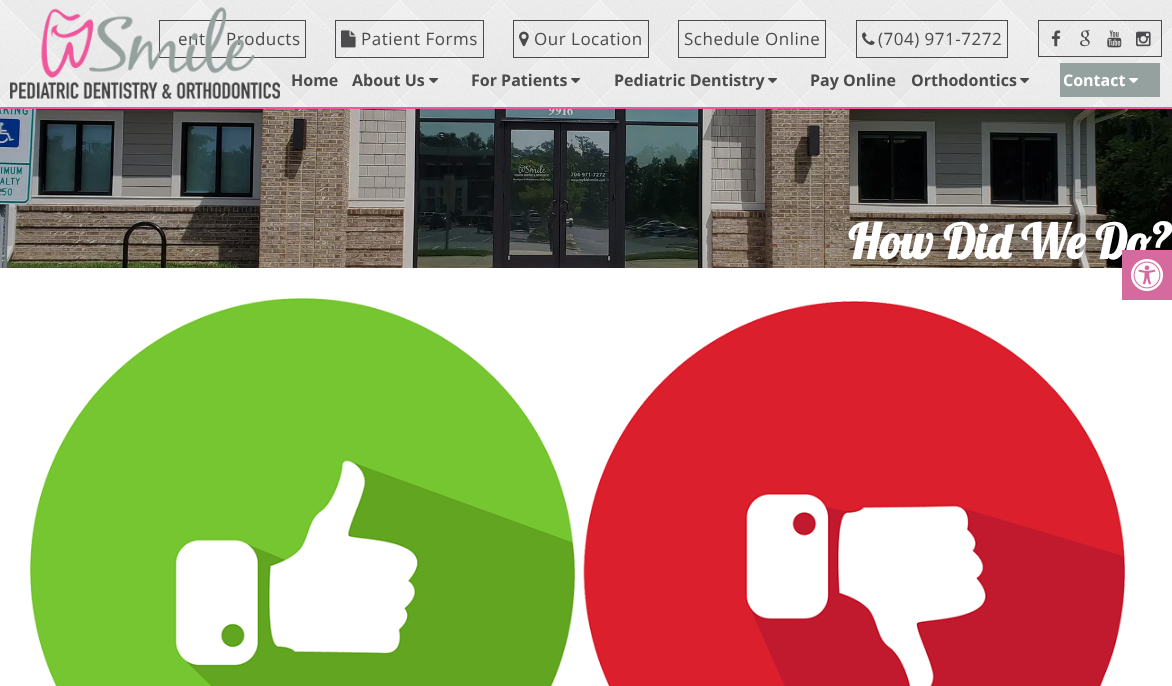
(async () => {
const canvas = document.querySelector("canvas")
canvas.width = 1172
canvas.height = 686
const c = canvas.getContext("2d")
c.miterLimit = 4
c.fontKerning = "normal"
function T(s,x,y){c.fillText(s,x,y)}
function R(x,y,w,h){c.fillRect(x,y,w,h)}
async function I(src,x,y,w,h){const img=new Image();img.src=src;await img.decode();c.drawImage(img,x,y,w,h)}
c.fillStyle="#fff"
R(0,0,1172,686)
await I("1.png",0,0,1172,107)
c.fillStyle="#ee579b"
R(0,107,1172,2)
c.strokeStyle="#4b4a4c"
c.strokeRect(159.5,20.5,146,37)
c.letterSpacing="0.5px"
c.font="17px Open Sans"
c.fillStyle="#4b4a4c"
T("ent",178,45)
T("Products",226,45)
c.strokeRect(335.5,20.5,148,37)
await I("2.png",341,30,15,18)
T("Patient Forms",361,45)
c.strokeRect(513.5,20.5,135,37)
await I("3.png",519,31,10,16)
T("Our Location",534,45)
c.strokeRect(678.5,20.5,147,37)
T("Schedule Online",684,45)
c.strokeRect(856.5,20.5,151,37)
await I("4.png",862,32,13,13)
T("(704) 971-7272",878,45)
c.strokeRect(1038.5,20.5,123,36)
await I("5.png",1051,30,10,17)
await I("6.png",1080,30,10,17)
await I("7.png",1107,30,15,18)
await I("8.png",1136,31,15,16)
await I("9.png",10,7,270,92)
c.letterSpacing="0px"
c.font="bold 16px Open Sans"
T("Home",291,86)
T("About Us",352,86)
await I("10.png",429,78,10,6)
T("For Patients",471,86)
await I("11.png",571,78,10,6)
T("Pediatric Dentistry",614,86)
await I("12.png",768,78,10,6)
T("Pay Online",810,86)
T("Orthodontics",911,86)
await I("13.png",1020,78,10,6)
c.fillStyle="#95a19e"
R(1060,63,100,34)
c.fillStyle="#fff"
T("Contact",1063,86)
await I("14.png",1129,78,10,6)
await I("15.png",0,109,1172,159)
c.font="bold 48px Lobster"
T("How Did We Do?",848,259)
await I("16.png",30,298,545,388)
await I("17.png",583,301,542,385)
c.fillStyle="#d46a9d"
R(1122,250,50,50)
await I("18.png",1131,259,32,32)
})()
